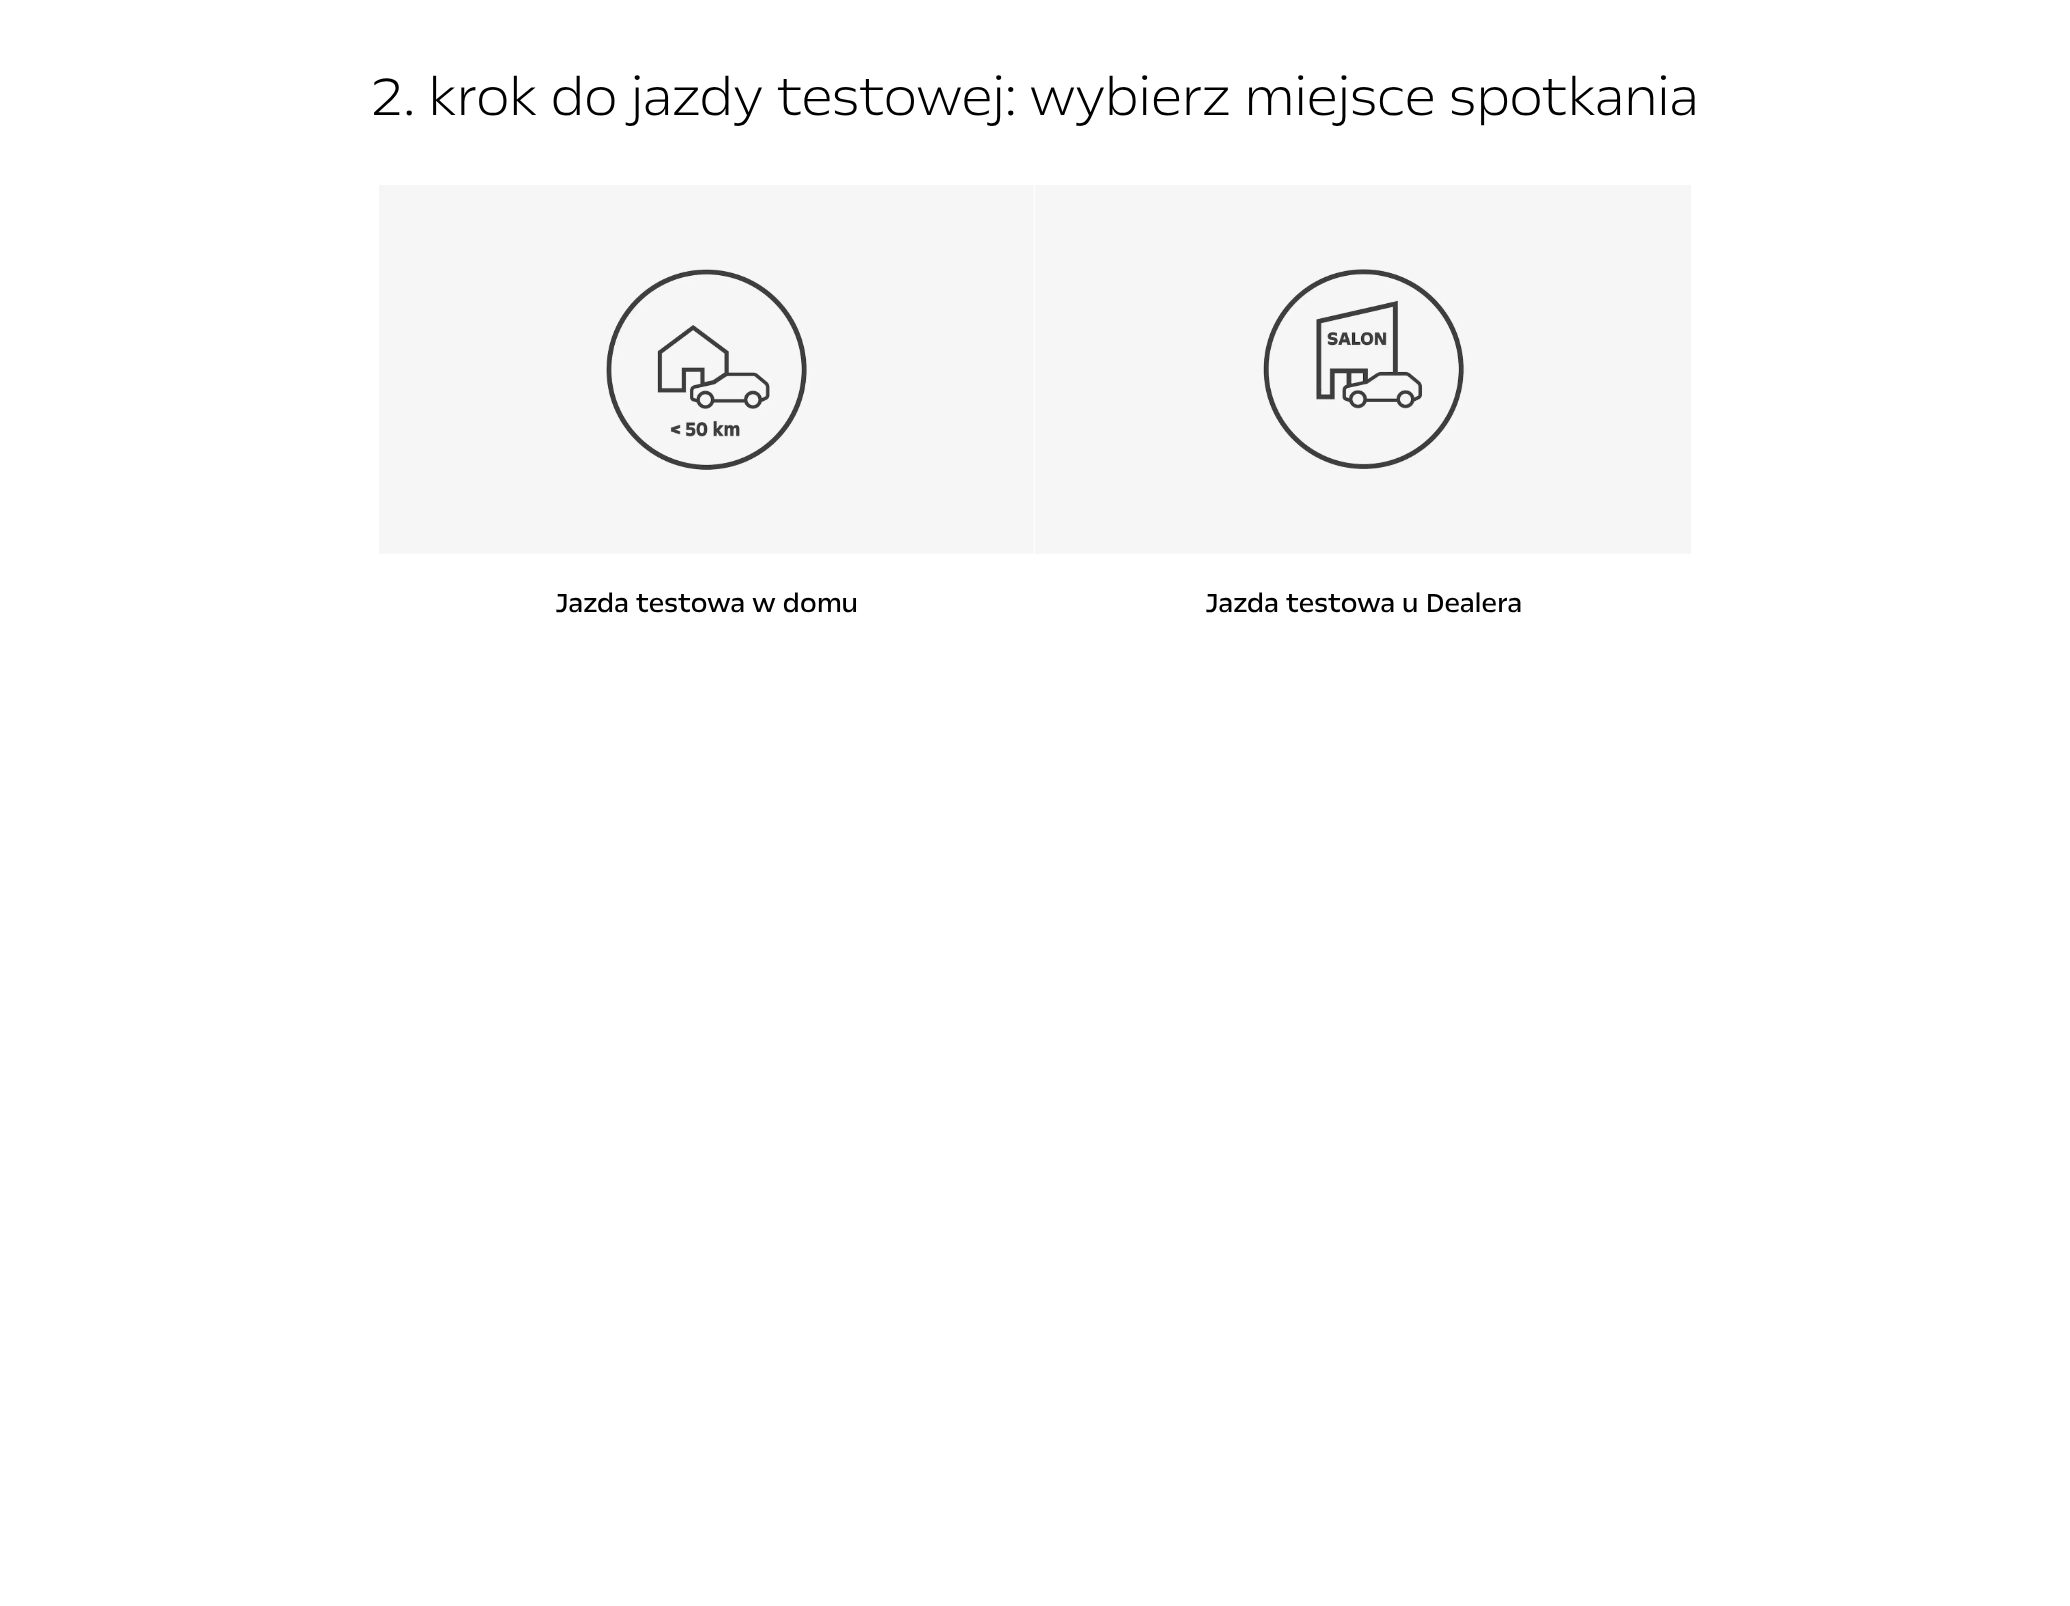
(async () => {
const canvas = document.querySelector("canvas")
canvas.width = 2070
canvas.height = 1606
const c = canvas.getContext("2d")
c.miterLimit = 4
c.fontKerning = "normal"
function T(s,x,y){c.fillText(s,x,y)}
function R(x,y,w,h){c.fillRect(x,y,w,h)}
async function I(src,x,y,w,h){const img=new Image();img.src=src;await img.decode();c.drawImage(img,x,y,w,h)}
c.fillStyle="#fff"
R(0,0,2070,1606)
c.font="300 60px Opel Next"
c.fillStyle="#000"
T("2. krok do jazdy testowej: wybierz miejsce spotkania",371,115)
await I("1.png",379,185,655,369)
c.font="30px Opel Next"
T("Jazda testowa w domu",555,612)
await I("2.png",1035,185,656,369)
T("Jazda testowa u Dealera",1205,612)
})()
